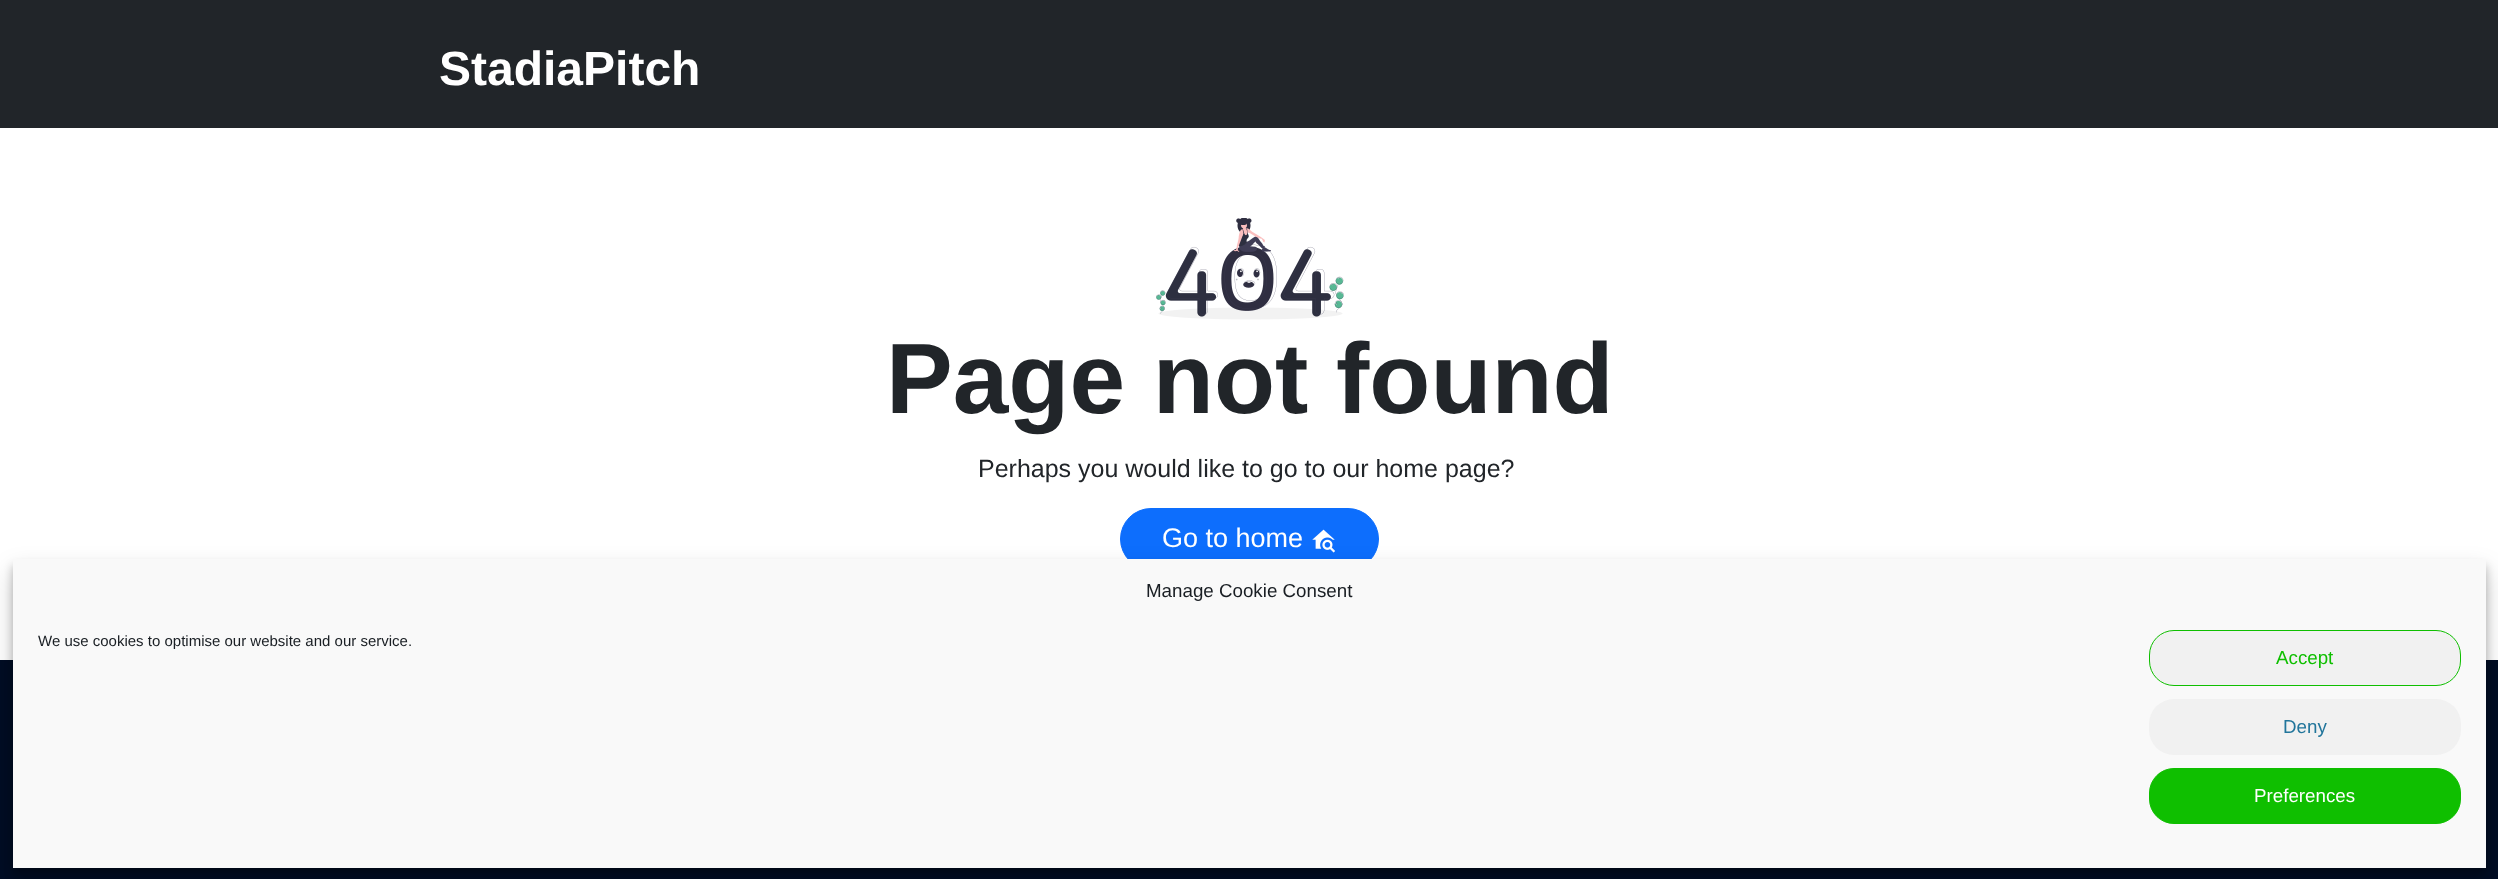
(async () => {
const canvas = document.querySelector("canvas")
canvas.width = 2498
canvas.height = 879
const c = canvas.getContext("2d")
c.miterLimit = 4
c.fontKerning = "normal"
function T(s,x,y){c.fillText(s,x,y)}
function R(x,y,w,h){c.fillRect(x,y,w,h)}
function Q(x,y,w,h,r){c.beginPath();c.roundRect(x,y,w,h,r);c.fill()}
async function I(src,x,y,w,h){const img=new Image();img.src=src;await img.decode();c.drawImage(img,x,y,w,h)}
c.fillStyle="#fff"
R(0,0,2498,879)
c.fillStyle="#212529"
R(0,0,2498,128)
c.font="bold 48px Liberation Sans"
c.fillStyle="#fff"
T("StadiaPitch",439,85)
await I("1.png",1156,218,188,102)
c.font="bold 100px Liberation Sans"
c.fillStyle="#212529"
T("Page not found",886,413)
c.font="25px Liberation Sans"
T("Perhaps you would like to go to our home page?",978,477)
c.fillStyle="#0d6efd"
c.beginPath()
c.roundRect(1120.5,508.5,258,61,30.5)
c.fill()
c.strokeStyle="#0d6efd"
c.stroke()
c.font="27px Liberation Sans"
c.fillStyle="#fff"
T("Go to home",1162,547)
await I("2.png",1312,529,23,24)
c.fillStyle="#000d24"
R(0,660,2498,219)
c.fillStyle="#0000003b"
c.filter="blur(4px)"
c.beginPath()
c.rect(13,566,2473,309)
c.fill()
c.filter="none"
c.fillStyle="#00000030"
c.filter="blur(12.5px)"
c.beginPath()
c.rect(13,571,2473,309)
c.fill()
c.filter="none"
c.fillStyle="#f9f9f9"
R(13,559,2473,309)
c.font="18.75px Liberation Sans"
c.fillStyle="#191e23"
T("Manage Cookie Consent",1146,597)
c.font="15px Liberation Sans"
T("We use cookies to optimise our website and our service.",38,646)
c.fillStyle="#f1f1f1"
c.beginPath()
c.roundRect(2149.5,630.5,311,55,24.5)
c.fill()
c.strokeStyle="#0fbf00"
c.stroke()
c.font="18.75px Liberation Sans"
c.fillStyle="#0fbf00"
T("Accept",2276,664)
c.fillStyle="#f1f1f1"
Q(2149,699,312,56,25)
c.fillStyle="#21759b"
T("Deny",2283,733)
c.fillStyle="#0fbf00"
c.beginPath()
c.roundRect(2149.5,768.5,311,55,24.5)
c.fill()
c.stroke()
c.fillStyle="#fff"
T("Preferences",2254,802)
})()
